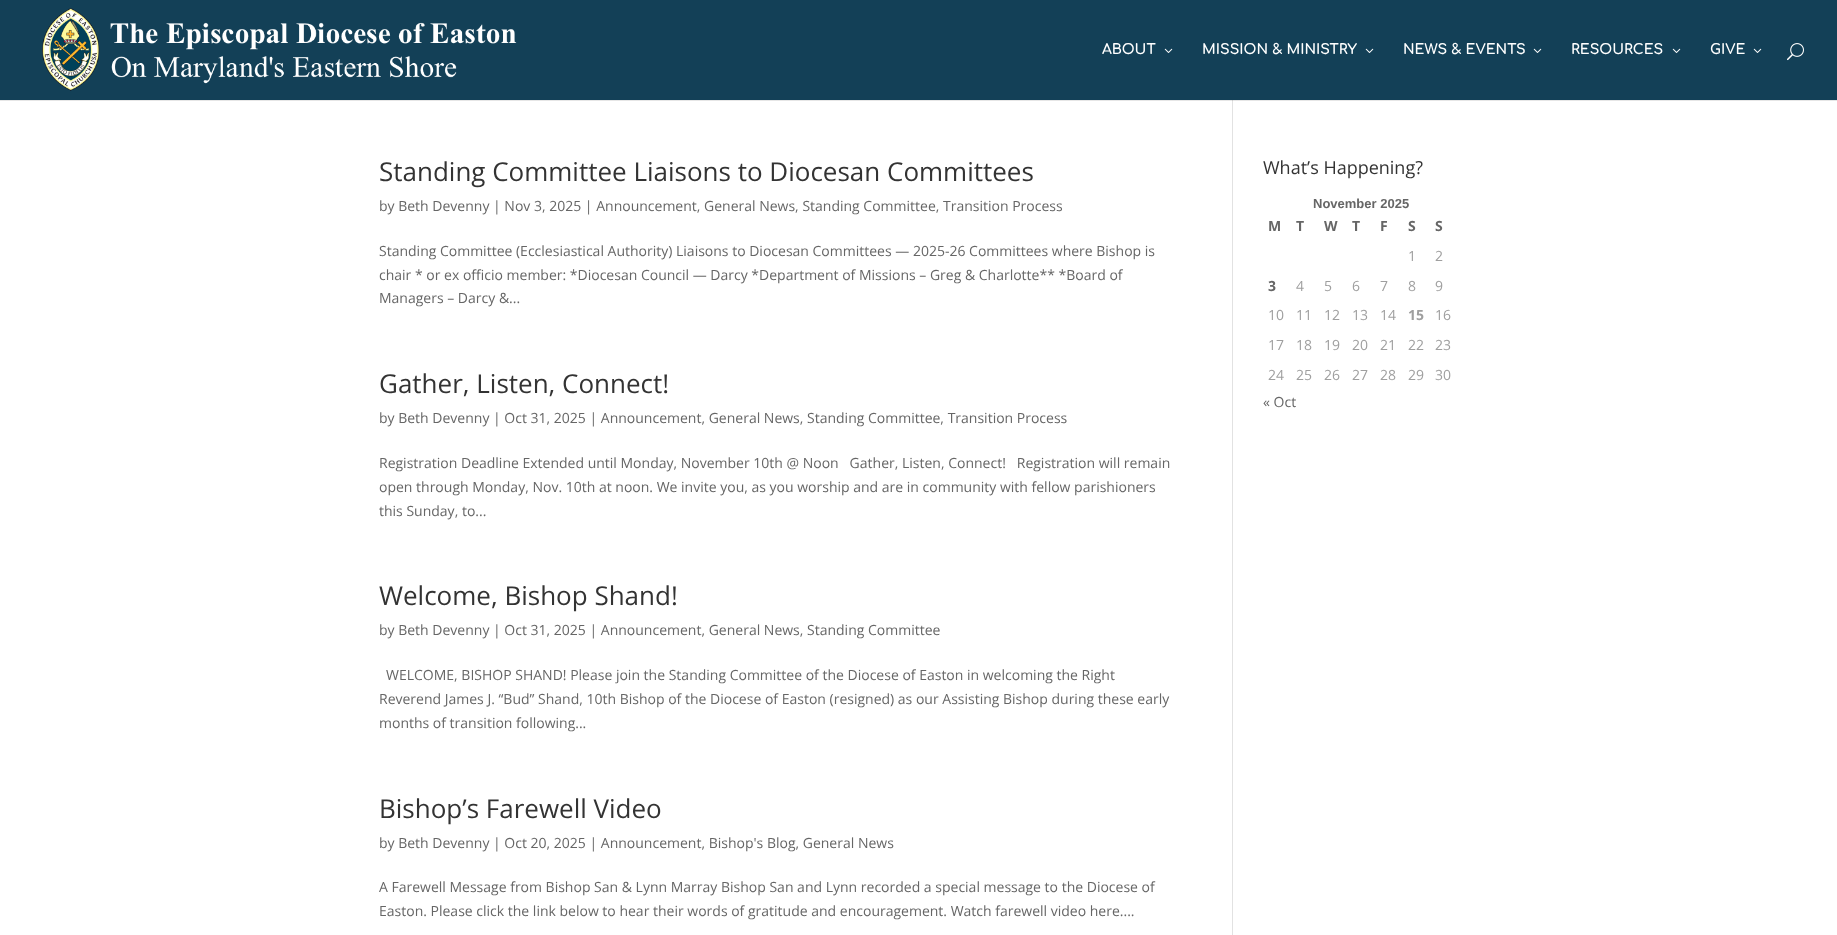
(async () => {
const canvas = document.querySelector("canvas")
canvas.width = 1837
canvas.height = 935
const c = canvas.getContext("2d")
c.miterLimit = 4
c.fontKerning = "normal"
function T(s,x,y){c.fillText(s,x,y)}
function R(x,y,w,h){c.fillRect(x,y,w,h)}
async function I(src,x,y,w,h){const img=new Image();img.src=src;await img.decode();c.drawImage(img,x,y,w,h)}
c.fillStyle="#fff"
R(0,0,1837,935)
c.fillStyle="#e6e6e6"
R(0,100,1837,1)
c.fillStyle="#134057"
R(0,0,1837,100)
await I("1.png",42,8,475,83)
c.font="bold 14px Comfortaa"
c.fillStyle="#fff"
T("ABOUT",1102,54)
await I("2.png",1164,48,9,5)
T("MISSION & MINISTRY",1202,54)
await I("2.png",1365,48,9,5)
T("NEWS & EVENTS",1403,54)
await I("2.png",1533,48,9,5)
T("RESOURCES",1571,54)
await I("2.png",1672,48,9,5)
T("GIVE",1710,54)
await I("2.png",1753,48,9,5)
await I("3.png",1787,43,17,18)
c.fillStyle="#e2e2e2"
R(1232,100,1,835)
c.fillStyle="#cbcbcb"
R(1232,100,1,1)
c.font="26px Open Sans"
c.fillStyle="#333"
T("Standing Committee Liaisons to Diocesan Committees",379,181)
c.font="14px Open Sans"
c.fillStyle="#666"
T("by Beth Devenny | Nov 3, 2025 | Announcement, General News, Standing Committee, Transition Process",379,211)
T("Standing Committee (Ecclesiastical Authority) Liaisons to Diocesan Committees — 2025-26 Committees where Bishop is",379,256)
T("chair * or ex officio member: *Diocesan Council — Darcy *Department of Missions – Greg & Charlotte** *Board of",379,280)
T("Managers – Darcy &...",379,303)
c.font="26px Open Sans"
c.fillStyle="#333"
T("Gather, Listen, Connect!",379,393)
c.font="14px Open Sans"
c.fillStyle="#666"
T("by Beth Devenny | Oct 31, 2025 | Announcement, General News, Standing Committee, Transition Process",379,423)
T("Registration Deadline Extended until Monday, November 10th @ Noon   Gather, Listen, Connect!   Registration will remain",379,468)
T("open through Monday, Nov. 10th at noon. We invite you, as you worship and are in community with fellow parishioners",379,492)
T("this Sunday, to...",379,516)
c.font="26px Open Sans"
c.fillStyle="#333"
T("Welcome, Bishop Shand!",379,605)
c.font="14px Open Sans"
c.fillStyle="#666"
T("by Beth Devenny | Oct 31, 2025 | Announcement, General News, Standing Committee",379,635)
T("WELCOME, BISHOP SHAND! Please join the Standing Committee of the Diocese of Easton in welcoming the Right",386,680)
T("Reverend James J. “Bud” Shand, 10th Bishop of the Diocese of Easton (resigned) as our Assisting Bishop during these early",379,704)
T("months of transition following...",379,728)
c.font="26px Open Sans"
c.fillStyle="#333"
T("Bishop’s Farewell Video",379,818)
c.font="14px Open Sans"
c.fillStyle="#666"
T("by Beth Devenny | Oct 20, 2025 | Announcement, Bishop's Blog, General News",379,848)
T("A Farewell Message from Bishop San & Lynn Marray Bishop San and Lynn recorded a special message to the Diocese of",379,892)
T("Easton. Please click the link below to hear their words of gratitude and encouragement. Watch farewell video here....",379,916)
c.font="18px Open Sans"
c.fillStyle="#333"
T("What’s Happening?",1263,174)
c.font="bold 13px Liberation Sans"
c.fillStyle="#666"
T("November 2025",1313,208)
c.font="bold 14px Open Sans"
T("M",1268,231)
T("T",1296,231)
T("W",1324,231)
T("T",1352,231)
T("F",1380,231)
T("S",1408,231)
T("S",1435,231)
c.font="14px Open Sans"
c.fillStyle="#9f9f9f"
T("1",1408,261)
T("2",1435,261)
c.font="bold 14px Open Sans"
c.fillStyle="#666"
T("3",1268,291)
c.font="14px Open Sans"
c.fillStyle="#9f9f9f"
T("4",1296,291)
T("5",1324,291)
T("6",1352,291)
T("7",1380,291)
T("8",1408,291)
T("9",1435,291)
T("10",1268,320)
T("11",1296,320)
T("12",1324,320)
T("13",1352,320)
T("14",1380,320)
c.font="bold 14px Open Sans"
T("15",1408,320)
c.font="14px Open Sans"
T("16",1435,320)
T("17",1268,350)
T("18",1296,350)
T("19",1324,350)
T("20",1352,350)
T("21",1380,350)
T("22",1408,350)
T("23",1435,350)
T("24",1268,380)
T("25",1296,380)
T("26",1324,380)
T("27",1352,380)
T("28",1380,380)
T("29",1408,380)
T("30",1435,380)
c.fillStyle="#666"
T("« Oct",1263,407)
})()
